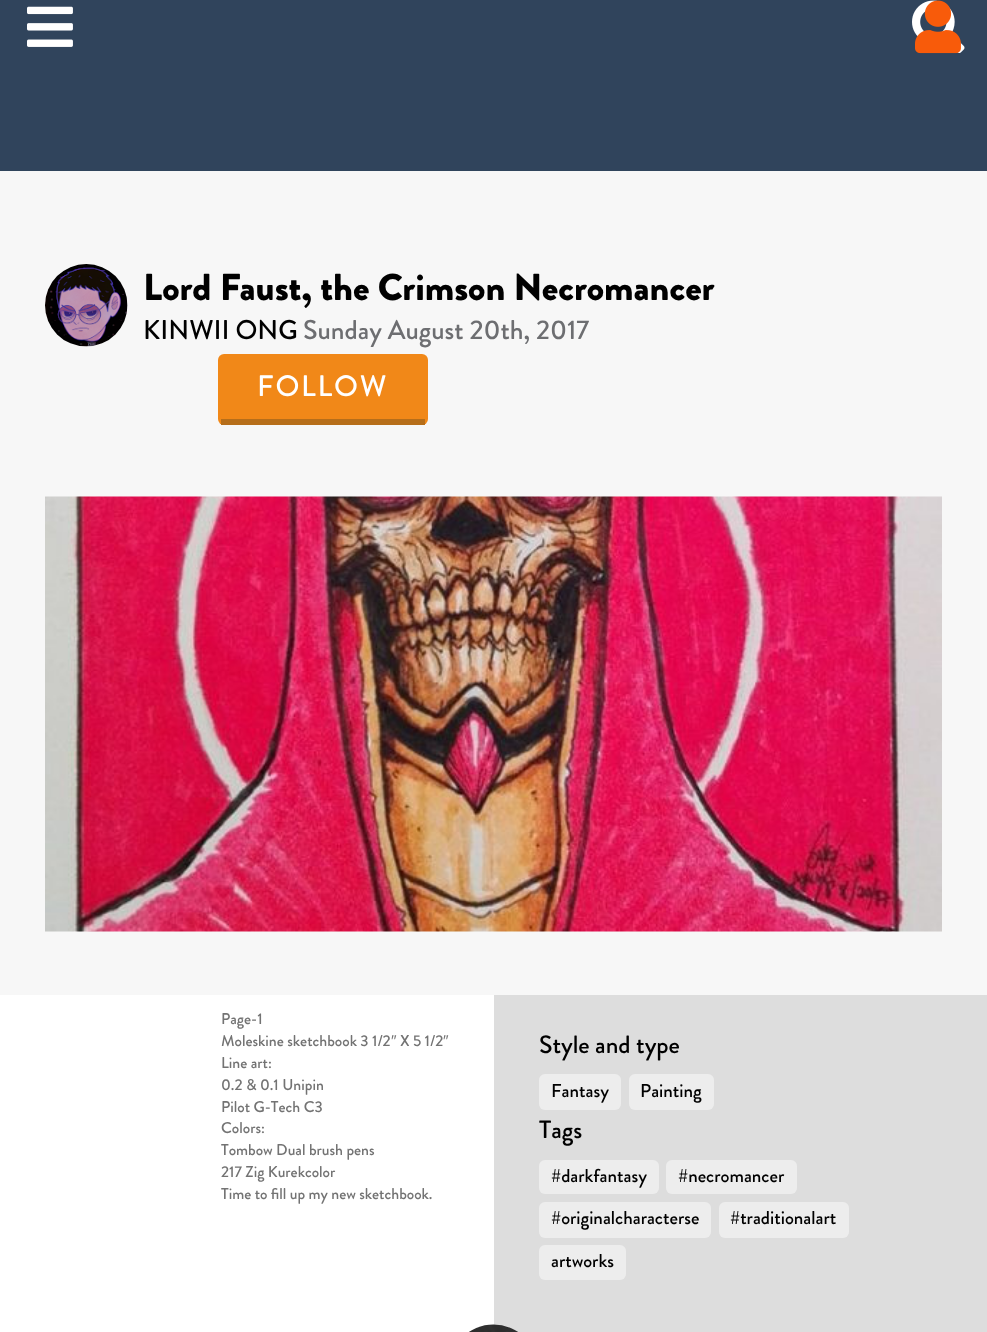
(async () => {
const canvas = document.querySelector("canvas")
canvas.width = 987
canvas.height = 1332
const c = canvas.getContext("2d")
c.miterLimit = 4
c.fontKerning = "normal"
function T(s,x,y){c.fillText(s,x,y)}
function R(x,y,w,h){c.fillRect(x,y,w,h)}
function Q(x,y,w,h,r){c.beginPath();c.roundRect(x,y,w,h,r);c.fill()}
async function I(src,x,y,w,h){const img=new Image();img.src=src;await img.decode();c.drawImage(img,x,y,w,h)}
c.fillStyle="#30445c"
R(0,0,987,1332)
await I("1.png",912,0,53,53)
await I("2.png",27,6,46,41)
await I("3.png",915,0,46,54)
c.fillStyle="#fff"
R(0,995,494,337)
c.fillStyle="#f7f7f7"
R(0,171,987,824)
await I("4.png",45,264,83,83)
c.font="900 37.5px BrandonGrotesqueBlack"
c.fillStyle="#000"
T("Lord Faust, the Crimson Necromancer",143,300)
c.font="500 27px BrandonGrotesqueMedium"
T("KINWII ONG",143,339)
c.fillStyle="#6d6e71"
T("Sunday August 20th, 2017",303,339)
c.fillStyle="#f18818"
Q(218,354,210,71,6)
c.fillStyle="#b66e1a"
R(221,419,204,6)
c.letterSpacing="1.75px"
c.font="500 29.5px BrandonGrotesqueMedium"
c.fillStyle="#fff"
T("FOLLOW",257,396)
await I("5.png",45,496,897,436)
c.letterSpacing="0px"
c.font="500 15.6px BrandonGrotesqueMedium"
c.fillStyle="#737373"
T("Page-1",221,1024)
T("Moleskine sketchbook 3 1/2",221,1046)
c.font="15.6px Liberation Sans"
T("″",391,1046)
c.font="500 15.6px BrandonGrotesqueMedium"
T("X 5 1/2",400,1046)
c.font="15.6px Liberation Sans"
T("″",443,1046)
c.font="500 15.6px BrandonGrotesqueMedium"
T("Line art:",221,1068)
T("0.2 & 0.1 Unipin",221,1090)
T("Pilot G-Tech C3",221,1112)
T("Colors:",221,1133)
T("Tombow Dual brush pens",221,1155)
T("217 Zig Kurekcolor",221,1177)
T("Time to fill up my new sketchbook.",221,1199)
c.fillStyle="#ddd"
R(494,995,493,337)
c.font="500 25px BrandonGrotesqueMedium"
c.fillStyle="#000"
T("Style and type",539,1053)
c.fillStyle="#ededed"
Q(539,1074,82,36,6)
c.font="500 18.75px BrandonGrotesqueMedium"
c.fillStyle="#000"
T("Fantasy",551,1097)
c.fillStyle="#ededed"
Q(629,1074,85,36,6)
c.fillStyle="#000"
T("Painting",640,1097)
c.font="500 25px BrandonGrotesqueMedium"
T("Tags",539,1138)
c.fillStyle="#ededed"
Q(539,1160,120,34,6)
c.font="500 18.75px BrandonGrotesqueMedium"
c.fillStyle="#000"
T("#darkfantasy",551,1182)
c.fillStyle="#ededed"
Q(666,1160,131,34,6)
c.fillStyle="#000"
T("#necromancer",678,1182)
c.fillStyle="#ededed"
Q(539,1202,172,36,6)
c.fillStyle="#000"
T("#originalcharacterse",551,1224)
c.fillStyle="#ededed"
Q(719,1202,130,36,6)
c.fillStyle="#000"
T("#traditionalart",730,1224)
c.fillStyle="#ededed"
Q(539,1245,87,35,6)
c.fillStyle="#000"
T("artworks",551,1267)
await I("6.png",469,1324,49,8)
})()
